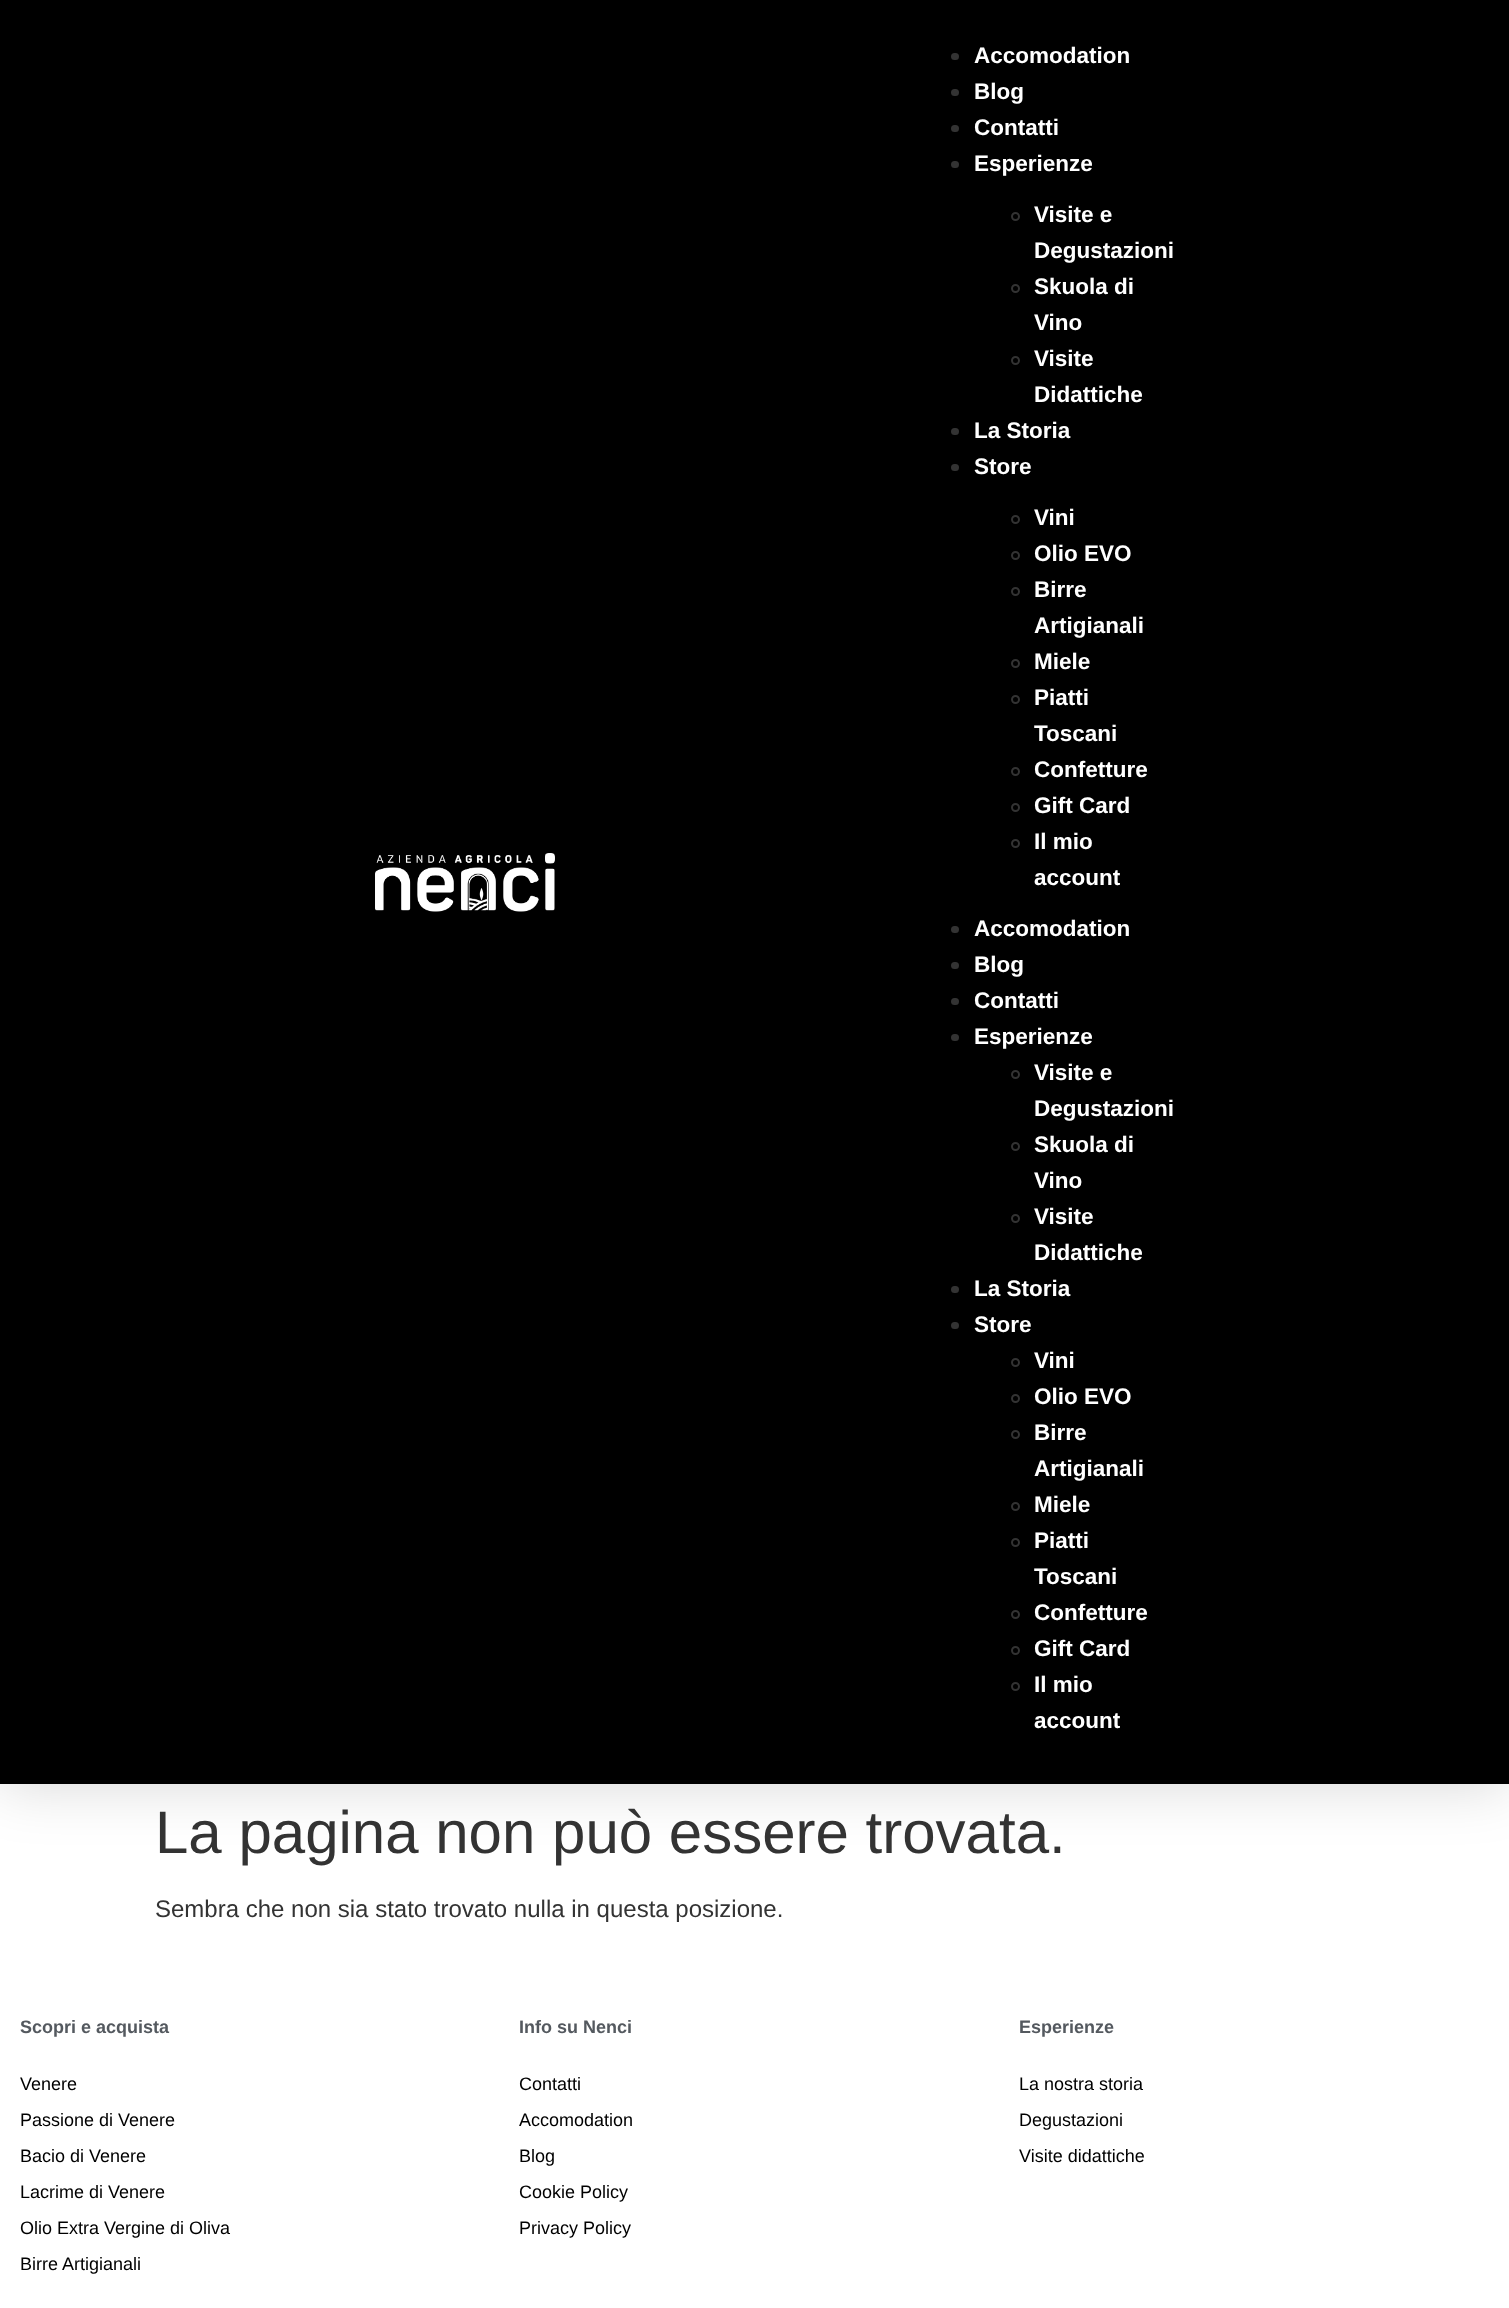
(async () => {
const canvas = document.querySelector("canvas")
canvas.width = 1509
canvas.height = 2308
const c = canvas.getContext("2d")
c.miterLimit = 4
c.fontKerning = "normal"
function T(s,x,y){c.fillText(s,x,y)}
function R(x,y,w,h){c.fillRect(x,y,w,h)}
function Q(x,y,w,h,r){c.beginPath();c.roundRect(x,y,w,h,r);c.fill()}
async function I(src,x,y,w,h){const img=new Image();img.src=src;await img.decode();c.drawImage(img,x,y,w,h)}
c.fillStyle="#fff"
R(0,0,1509,2308)
c.fillStyle="#00000029"
c.filter="blur(30px)"
c.beginPath()
c.rect(0,-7,1509,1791)
c.fill()
c.filter="none"
c.fillStyle="#000"
R(0,0,1509,1784)
await I("1.png",375,853,180,59)
c.fillStyle="#333"
Q(951,53,8,7,3.5)
c.font="bold 22.5px Liberation Sans"
c.fillStyle="#fff"
T("Accomodation",974,63)
c.fillStyle="#333"
Q(951,89,8,7,3.5)
c.fillStyle="#fff"
T("Blog",974,99)
c.fillStyle="#333"
Q(951,125,8,7,3.5)
c.fillStyle="#fff"
T("Contatti",974,135)
c.fillStyle="#333"
Q(951,161,8,7,3.5)
c.fillStyle="#fff"
T("Esperienze",974,171)
c.beginPath()
c.arc(1015.5,216.5,3.5,0,7)
c.strokeStyle="#333"
c.lineWidth=2
c.stroke()
T("Visite e",1034,222)
T("Degustazioni",1034,258)
c.beginPath()
c.arc(1015.5,288.5,3.5,0,7)
c.stroke()
T("Skuola di",1034,294)
T("Vino",1034,330)
c.beginPath()
c.arc(1015.5,360.5,3.5,0,7)
c.stroke()
T("Visite",1034,366)
T("Didattiche",1034,402)
c.fillStyle="#333"
Q(951,428,8,7,3.5)
c.fillStyle="#fff"
T("La Storia",974,438)
c.fillStyle="#333"
Q(951,464,8,7,3.5)
c.fillStyle="#fff"
T("Store",974,474)
c.beginPath()
c.arc(1015.5,519.5,3.5,0,7)
c.stroke()
T("Vini",1034,525)
c.beginPath()
c.arc(1015.5,555.5,3.5,0,7)
c.stroke()
T("Olio EVO",1034,561)
c.beginPath()
c.arc(1015.5,591.5,3.5,0,7)
c.stroke()
T("Birre",1034,597)
T("Artigianali",1034,633)
c.beginPath()
c.arc(1015.5,663.5,3.5,0,7)
c.stroke()
T("Miele",1034,669)
c.beginPath()
c.arc(1015.5,699.5,3.5,0,7)
c.stroke()
T("Piatti",1034,705)
T("Toscani",1034,741)
c.beginPath()
c.arc(1015.5,771.5,3.5,0,7)
c.stroke()
T("Confetture",1034,777)
c.beginPath()
c.arc(1015.5,807.5,3.5,0,7)
c.stroke()
T("Gift Card",1034,813)
c.beginPath()
c.arc(1015.5,843.5,3.5,0,7)
c.stroke()
T("Il mio",1034,849)
T("account",1034,885)
c.fillStyle="#333"
Q(951,926,8,7,3.5)
c.fillStyle="#fff"
T("Accomodation",974,936)
c.fillStyle="#333"
Q(951,962,8,7,3.5)
c.fillStyle="#fff"
T("Blog",974,972)
c.fillStyle="#333"
Q(951,998,8,7,3.5)
c.fillStyle="#fff"
T("Contatti",974,1008)
c.fillStyle="#333"
Q(951,1034,8,7,3.5)
c.fillStyle="#fff"
T("Esperienze",974,1044)
c.beginPath()
c.arc(1015.5,1074.5,3.5,0,7)
c.stroke()
T("Visite e",1034,1080)
T("Degustazioni",1034,1116)
c.beginPath()
c.arc(1015.5,1146.5,3.5,0,7)
c.stroke()
T("Skuola di",1034,1152)
T("Vino",1034,1188)
c.beginPath()
c.arc(1015.5,1218.5,3.5,0,7)
c.stroke()
T("Visite",1034,1224)
T("Didattiche",1034,1260)
c.fillStyle="#333"
Q(951,1286,8,7,3.5)
c.fillStyle="#fff"
T("La Storia",974,1296)
c.fillStyle="#333"
Q(951,1322,8,7,3.5)
c.fillStyle="#fff"
T("Store",974,1332)
c.beginPath()
c.arc(1015.5,1362.5,3.5,0,7)
c.stroke()
T("Vini",1034,1368)
c.beginPath()
c.arc(1015.5,1398.5,3.5,0,7)
c.stroke()
T("Olio EVO",1034,1404)
c.beginPath()
c.arc(1015.5,1434.5,3.5,0,7)
c.stroke()
T("Birre",1034,1440)
T("Artigianali",1034,1476)
c.beginPath()
c.arc(1015.5,1506.5,3.5,0,7)
c.stroke()
T("Miele",1034,1512)
c.beginPath()
c.arc(1015.5,1542.5,3.5,0,7)
c.stroke()
T("Piatti",1034,1548)
T("Toscani",1034,1584)
c.beginPath()
c.arc(1015.5,1614.5,3.5,0,7)
c.stroke()
T("Confetture",1034,1620)
c.beginPath()
c.arc(1015.5,1650.5,3.5,0,7)
c.stroke()
T("Gift Card",1034,1656)
c.beginPath()
c.arc(1015.5,1686.5,3.5,0,7)
c.stroke()
T("Il mio",1034,1692)
T("account",1034,1728)
c.font="60px Liberation Sans"
c.fillStyle="#333"
T("La pagina non può essere trovata.",155,1853)
c.font="24px Liberation Sans"
T("Sembra che non sia stato trovato nulla in questa posizione.",155,1917)
c.font="bold 18px Liberation Sans"
c.fillStyle="#54595f"
T("Scopri e acquista",20,2033)
c.font="18px Liberation Sans"
c.fillStyle="#000"
T("Venere",20,2090)
T("Passione di Venere",20,2126)
T("Bacio di Venere",20,2162)
T("Lacrime di Venere",20,2198)
T("Olio Extra Vergine di Oliva",20,2234)
T("Birre Artigianali",20,2270)
c.font="bold 18px Liberation Sans"
c.fillStyle="#54595f"
T("Info su Nenci",519,2033)
c.font="18px Liberation Sans"
c.fillStyle="#000"
T("Contatti",519,2090)
T("Accomodation",519,2126)
T("Blog",519,2162)
T("Cookie Policy",519,2198)
T("Privacy Policy",519,2234)
c.font="bold 18px Liberation Sans"
c.fillStyle="#54595f"
T("Esperienze",1019,2033)
c.font="18px Liberation Sans"
c.fillStyle="#000"
T("La nostra storia",1019,2090)
T("Degustazioni",1019,2126)
T("Visite didattiche",1019,2162)
})()
